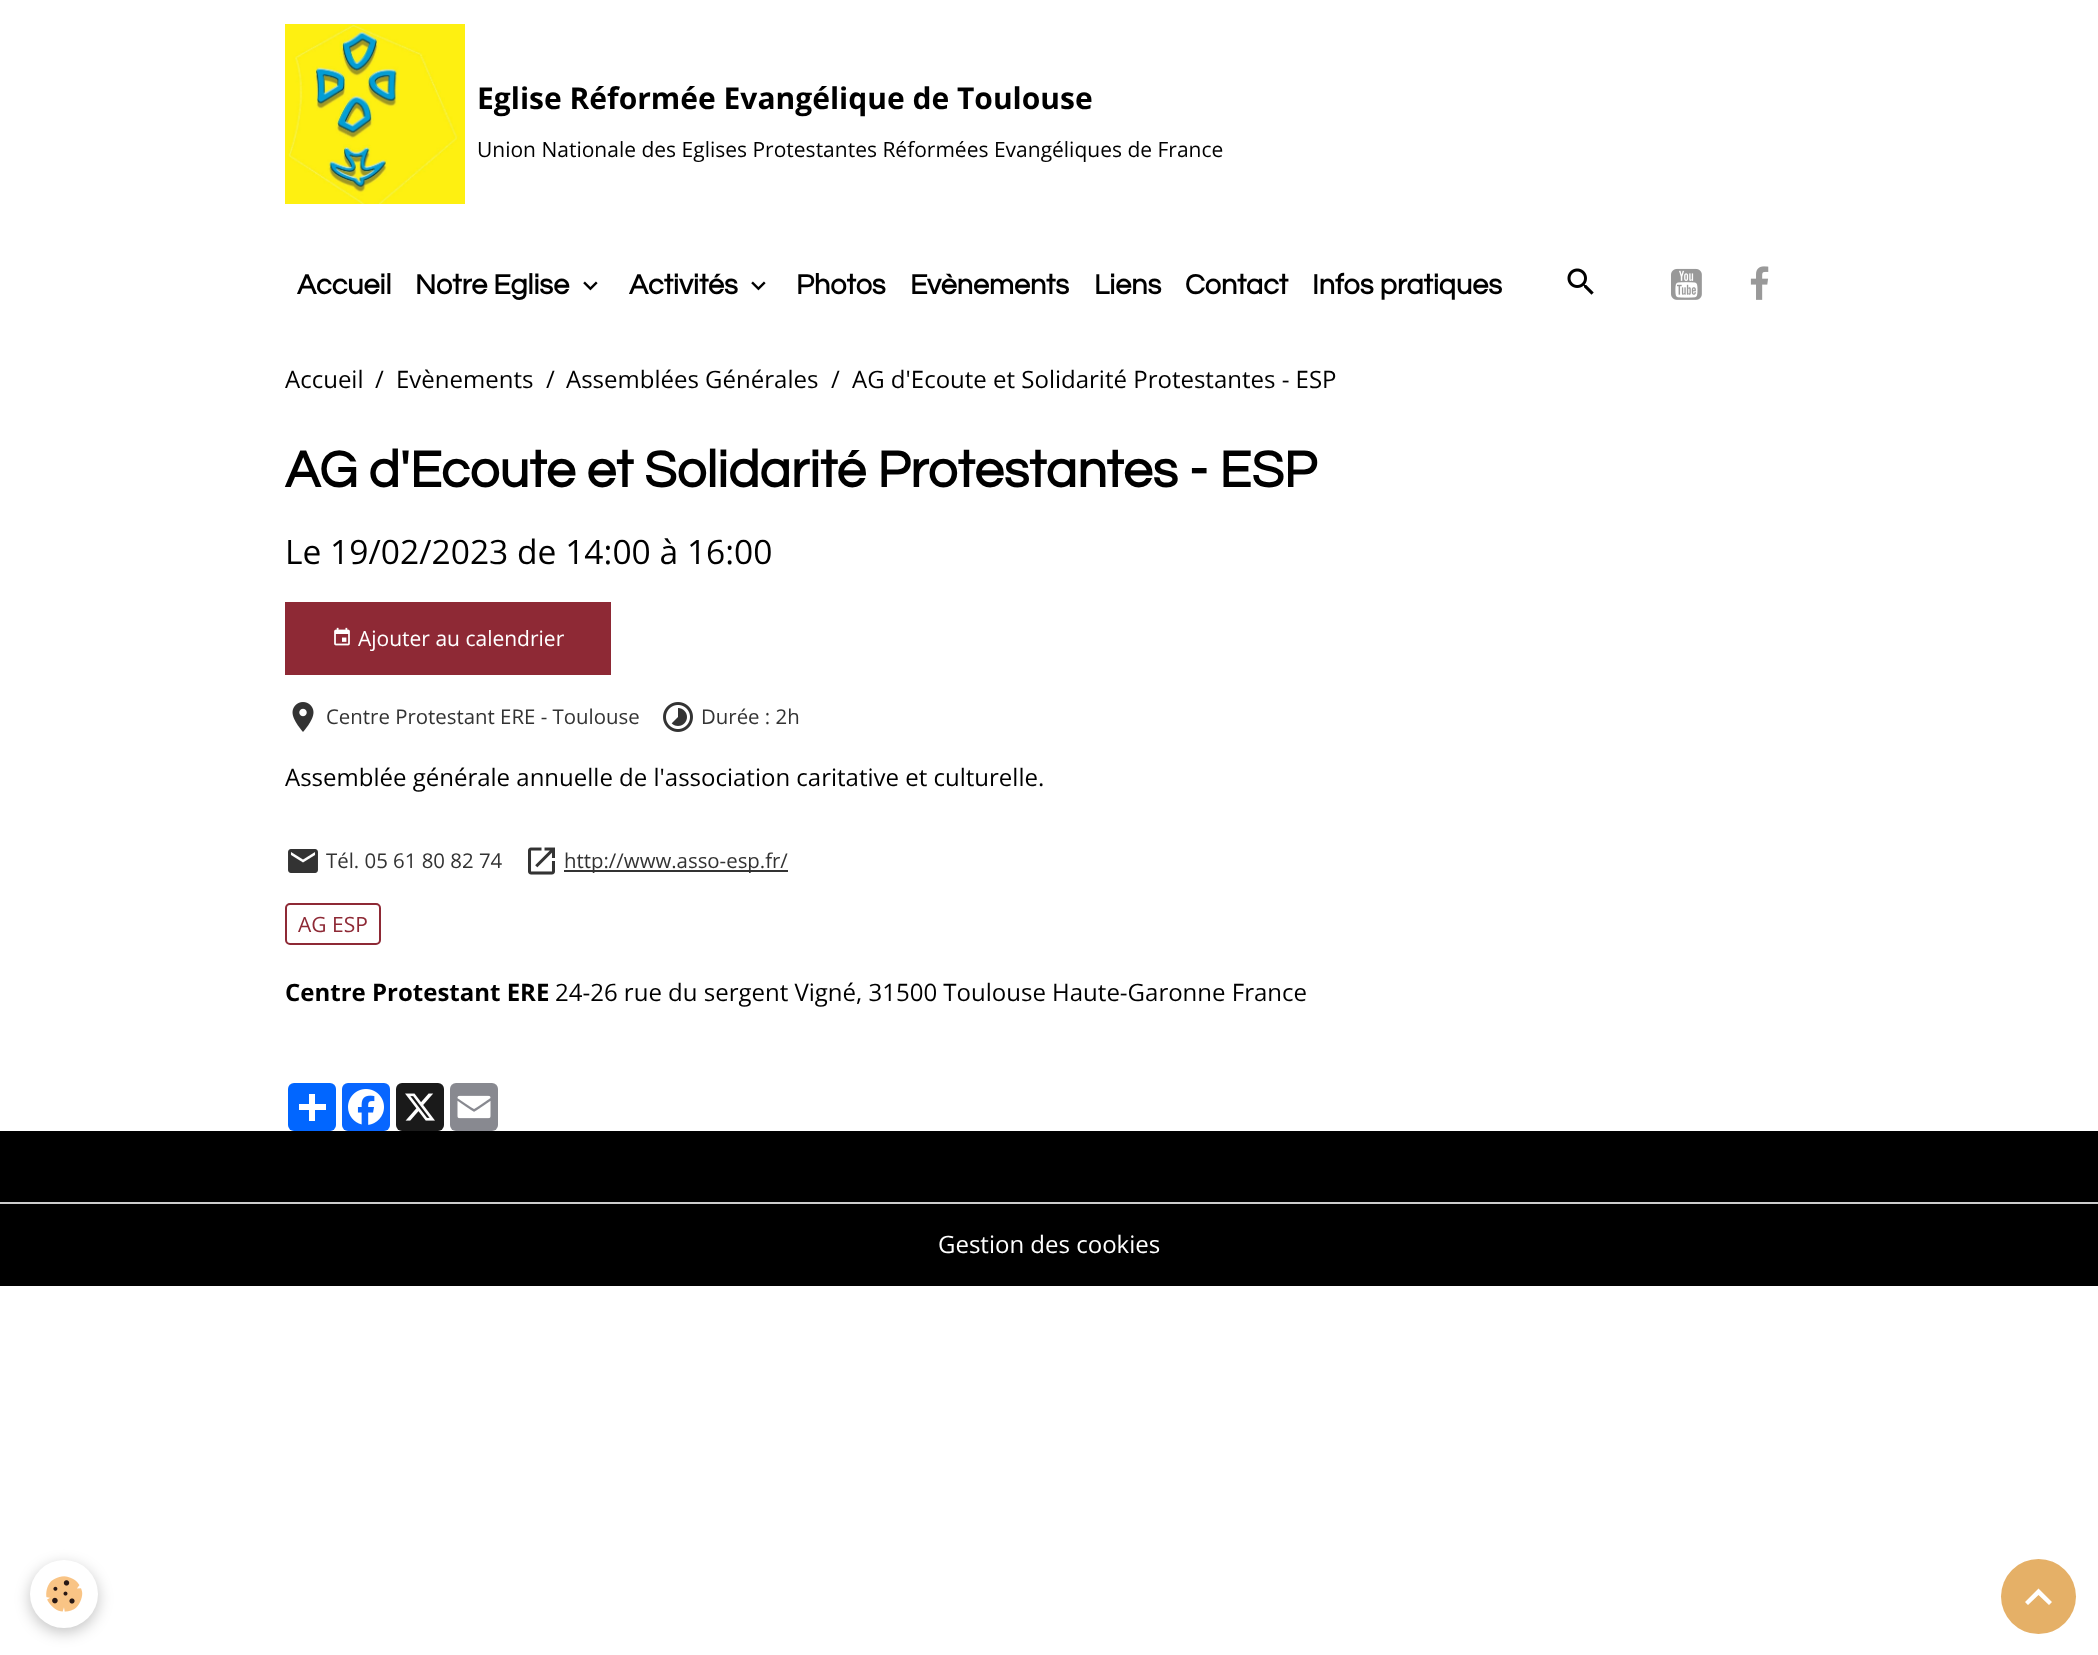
(async () => {
const canvas = document.querySelector("canvas")
canvas.width = 2098
canvas.height = 1655
const c = canvas.getContext("2d")
c.miterLimit = 4
c.fontKerning = "normal"
function T(s,x,y){c.fillText(s,x,y)}
function R(x,y,w,h){c.fillRect(x,y,w,h)}
function Q(x,y,w,h,r){c.beginPath();c.roundRect(x,y,w,h,r);c.fill()}
async function I(src,x,y,w,h){const img=new Image();img.src=src;await img.decode();c.drawImage(img,x,y,w,h)}
let path
c.fillStyle="#fff"
R(0,0,2098,1655)
await I("1.png",285,24,180,180)
c.font="bold 30px Open Sans"
c.fillStyle="#000"
T("Eglise Réformée Evangélique de Toulouse",477,109)
c.font="21px Open Sans"
T("Union Nationale des Eglises Protestantes Réformées Evangéliques de France",477,157)
c.font="bold 28.75px Questrial"
T("Accueil",297,294)
T("Notre Eglise",415,294)
await I("2.png",583,281,15,10)
T("Activités",629,294)
await I("2.png",751,281,15,10)
T("Photos",796,294)
T("Evènements",910,294)
T("Liens",1094,294)
T("Contact",1185,294)
T("Infos pratiques",1312,294)
await I("3.png",1567,268,27,27)
await I("4.png",1671,268,31,32)
await I("5.png",1750,266,19,34)
c.font="24px Open Sans"
T("Accueil",285,388)
T("/",375,388)
T("Evènements",396,388)
T("/",546,388)
T("Assemblées Générales",566,388)
T("/",831,388)
T("AG d'Ecoute et Solidarité Protestantes - ESP",852,388)
c.font="bold 52.75px Questrial"
T("AG d'Ecoute et Solidarité Protestantes - ESP",285,487)
c.font="33.6px Open Sans"
T("Le 19/02/2023 de 14:00 à 16:00",285,564)
c.fillStyle="#8e2935"
R(285,602,326,73)
await I("6.png",334,627,16,19)
c.font="21px Open Sans"
c.fillStyle="#fff"
T("Ajouter au calendrier",358,646)
await I("7.png",292,702,22,30)
c.font="20.4px Open Sans"
c.fillStyle="#333"
T("Centre Protestant ERE - Toulouse",326,724)
await I("8.png",663,702,30,30)
T("Durée : 2h",701,724)
c.font="24px Open Sans"
c.fillStyle="#000"
T("Assemblée générale annuelle de l'association caritative et culturelle.",285,786)
await I("9.png",288,849,30,24)
c.font="20.4px Open Sans"
c.fillStyle="#333"
T("Tél. 05 61 80 82 74",326,868)
await I("10.png",528,847,27,28)
R(564,870,224,2)
T("http://www.asso-esp.fr/",564,868)
c.beginPath()
c.roundRect(286,904,94,40,4)
c.strokeStyle="#8e2935"
c.lineWidth=2
c.stroke()
c.font="21px Open Sans"
c.fillStyle="#8e2935"
T("AG ESP",298,932)
c.font="bold 24px Open Sans"
c.fillStyle="#000"
T("Centre Protestant ERE",285,1001)
c.font="24px Open Sans"
T("24-26 rue du sergent Vigné, 31500 Toulouse Haute-Garonne France",555,1001)
c.fillStyle="#0166ff"
Q(288,1083,48,48,6)
c.fillStyle="#fff"
R(309,1094,6,27)
R(299,1104,27,6)
c.fillStyle="#0866ff"
Q(342,1083,48,48,6)
await I("11.png",348,1089,36,36)
c.fillStyle="#1a1a1a"
Q(396,1083,48,48,6)
await I("12.png",405,1093,30,28)
c.fillStyle="#888990"
Q(450,1083,48,48,6)
await I("13.png",457,1095,34,24)
c.fillStyle="#000"
R(0,1131,2098,155)
c.fillStyle="#ccc"
R(0,1202,2098,2)
c.fillStyle="#fff"
T("Gestion des cookies",938,1253)
c.fillStyle="#0000003d"
c.filter="blur(7.5px)"
c.beginPath()
c.roundRect(30,1565,68,67,33.5)
c.fill()
c.filter="none"
c.fillStyle="#fff"
c.beginPath()
c.arc(64,1594,34,0,7)
c.fill()
await I("14.png",46,1576,37,36)
c.fillStyle="#e5b067"
c.beginPath()
c.arc(2038.5,1596.5,37.5,0,7)
c.fill()
c.fillStyle="#fff"
path = new Path2D("M2038.5 1588.5l13.5 13.5l-3 3l-10.5-10l-10.5 10l-3-3z")
c.fill(path)
})()
